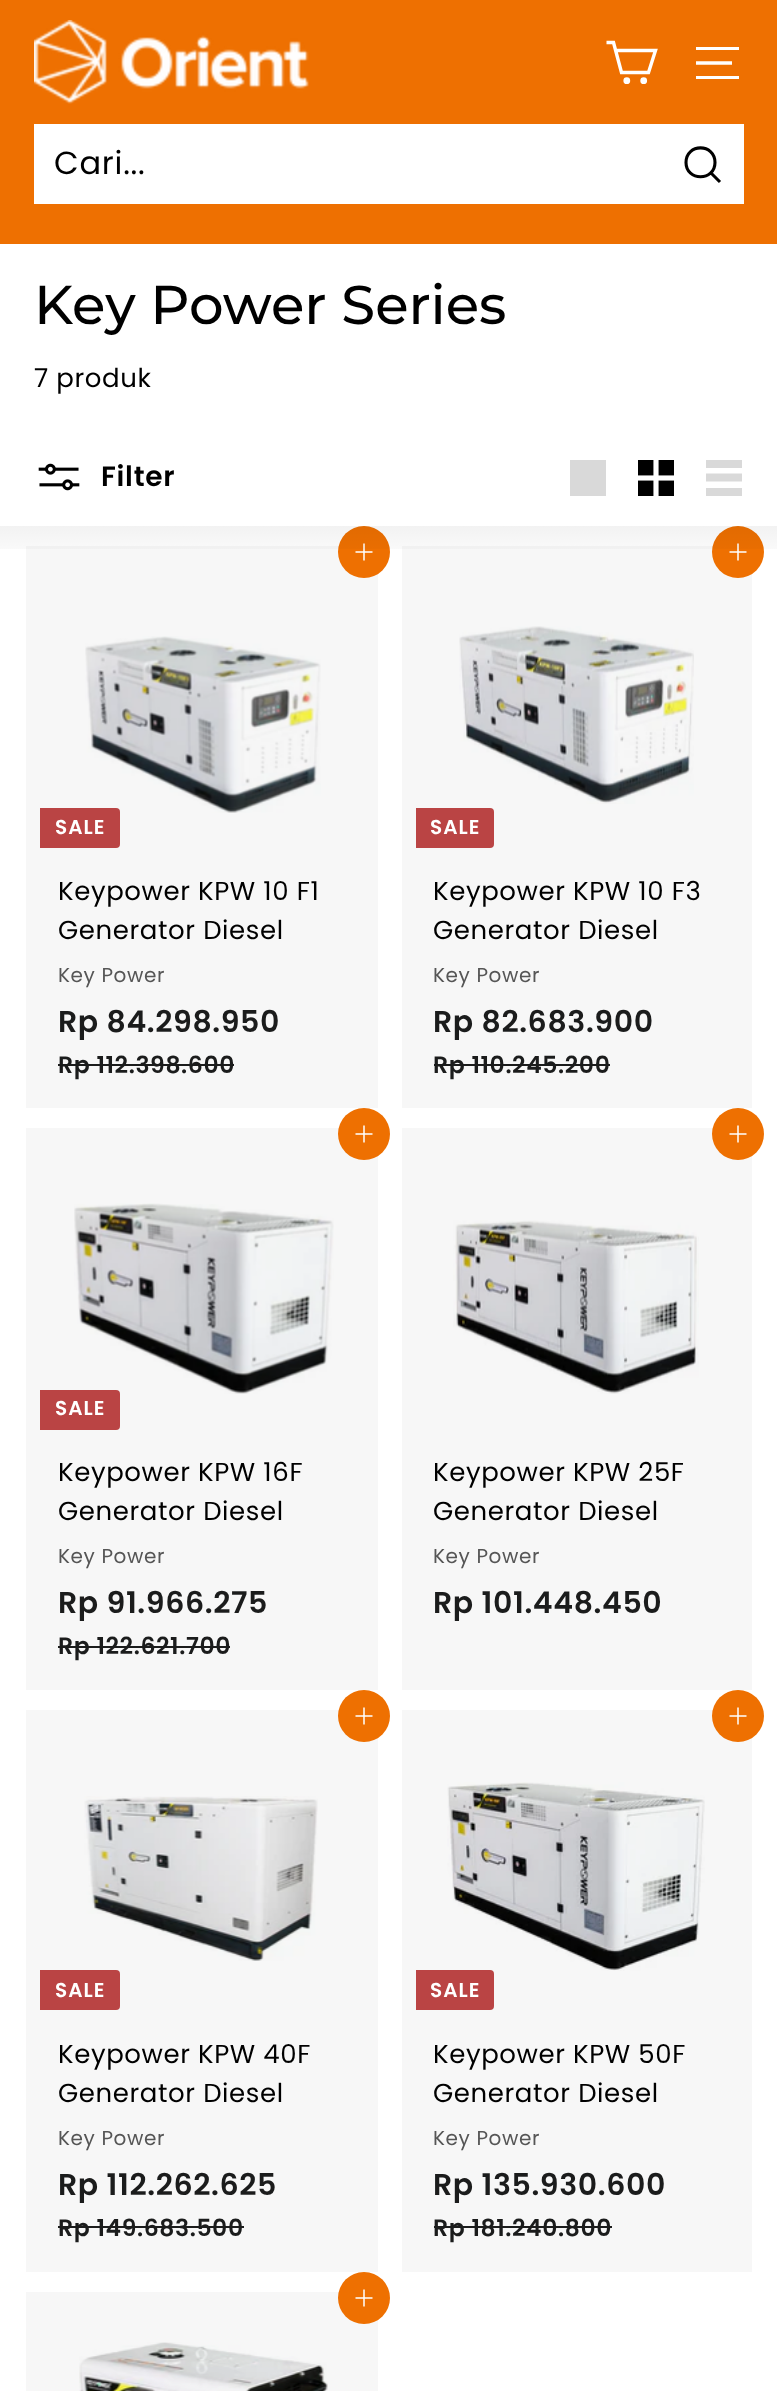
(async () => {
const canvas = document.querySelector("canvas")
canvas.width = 777
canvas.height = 2391
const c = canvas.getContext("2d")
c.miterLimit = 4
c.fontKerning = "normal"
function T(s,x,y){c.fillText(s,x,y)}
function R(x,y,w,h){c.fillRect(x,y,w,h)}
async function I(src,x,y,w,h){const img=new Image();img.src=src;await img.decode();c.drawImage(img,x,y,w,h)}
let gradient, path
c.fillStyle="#fff"
R(0,0,777,2391)
c.fillStyle="#f7f7f7"
R(26,2292,352,99)
R(402,1710,350,562)
R(26,1710,352,562)
R(402,1128,350,562)
R(26,1128,352,562)
R(402,546,350,562)
R(26,546,352,562)
c.fillStyle="#ee7001"
R(0,0,777,244)
await I("1.png",34,20,275,84)
path = new Path2D("M616 50.5h39.5l-7 22h-27l-8-30h-7")
c.strokeStyle="#fff"
c.lineWidth=3.4
c.stroke(path)
c.beginPath()
c.arc(626.8,80.7,1.7,0,7)
c.stroke()
c.beginPath()
c.arc(643.7,80.7,1.7,0,7)
c.stroke()
c.fillStyle="#fff"
R(696,47,43,3)
path = new Path2D("M696 63h36")
c.stroke(path)
R(696,76,43,3)
R(34,124,710,80)
c.letterSpacing="0.75px"
c.font="32px Poppins"
c.fillStyle="#000"
T("Cari...",54,174)
path = new Path2D("M715 162.5c0 19-29 19-29 0c0-19.5 29-19.5 29 0zm5 19.5l-9-9")
c.strokeStyle="#000"
c.lineWidth=3.1
c.stroke(path)
c.letterSpacing="0px"
c.font="500 54.5px Montserrat"
T("Key Power Series",34,324)
c.letterSpacing="0.6px"
c.font="26px Poppins"
T("7 produk",34,387)
await I("2.png",38,463,42,28)
c.letterSpacing="0.75px"
c.font="600 28px Poppins"
T("Filter",101,486)
c.fillStyle="#d9d9d9"
R(570,460,36,36)
await I("3.png",638,460,36,36)
path = new Path2D("M706 460h36v8h-36zm0 13.5h36v8h-36zm0 14.5h36v8h-36z")
c.fill(path)
c.fillStyle="#ee7001"
c.beginPath()
c.arc(364,552,26,0,7)
c.fill()
path = new Path2D("M364 543.5v17m8.5-8.5h-17")
c.strokeStyle="#fff"
c.lineWidth=1.5
c.stroke(path)
c.beginPath()
c.arc(738,552,26,0,7)
c.fill()
path = new Path2D("M738 543.5v17m8.5-8.5h-17")
c.stroke(path)
gradient = c.createLinearGradient(389,526,389,566)
gradient.addColorStop(0,"#0000000d")
gradient.addColorStop(1,"#00000000")
c.fillStyle = gradient
R(0,526,777,23)
await I("4.png",85,636,236,177)
c.fillStyle="#ba4444"
c.beginPath()
c.roundRect(40,808,80,40,[0,4,4,0])
c.fill()
c.letterSpacing="1px"
c.font="600 20px Poppins"
c.fillStyle="#fff"
T("SALE",55,834)
c.letterSpacing="0.6px"
c.font="26px Poppins"
c.fillStyle="#000"
T("Keypower KPW 10 F1",58,900)
T("Generator Diesel",58,939)
c.font="20px Poppins"
c.fillStyle="#565656"
T("Key Power",58,982)
c.font="600 30px Poppins"
c.fillStyle="#1b1c1c"
T("Rp 84.298.950",58,1032)
c.font="600 23.5px Poppins"
T("Rp 112.398.600",58,1073)
R(58,1064,176,2)
await I("5.png",459,626,235,178)
c.fillStyle="#ba4444"
c.beginPath()
c.roundRect(416,808,78,40,[0,4,4,0])
c.fill()
c.letterSpacing="1px"
c.font="600 20px Poppins"
c.fillStyle="#fff"
T("SALE",430,834)
c.letterSpacing="0.6px"
c.font="26px Poppins"
c.fillStyle="#000"
T("Keypower KPW 10 F3",433,900)
T("Generator Diesel",433,939)
c.font="20px Poppins"
c.fillStyle="#565656"
T("Key Power",433,982)
c.font="600 30px Poppins"
c.fillStyle="#1b1c1c"
T("Rp 82.683.900",433,1032)
c.font="600 23.5px Poppins"
T("Rp 110.245.200",433,1073)
R(434,1064,176,2)
c.fillStyle="#ee7001"
c.beginPath()
c.arc(364,1134,26,0,7)
c.fill()
path = new Path2D("M364 1125.5v17m8.5-8.5h-17")
c.stroke(path)
await I("6.png",74,1203,260,191)
c.fillStyle="#ba4444"
c.beginPath()
c.roundRect(40,1390,80,40,[0,4,4,0])
c.fill()
c.letterSpacing="1px"
c.font="600 20px Poppins"
c.fillStyle="#fff"
T("SALE",55,1415)
c.letterSpacing="0.6px"
c.font="26px Poppins"
c.fillStyle="#000"
T("Keypower KPW 16F",58,1481)
T("Generator Diesel",58,1520)
c.font="20px Poppins"
c.fillStyle="#565656"
T("Key Power",58,1563)
c.font="600 30px Poppins"
c.fillStyle="#1b1c1c"
T("Rp 91.966.275",58,1613)
c.font="600 23.5px Poppins"
T("Rp 122.621.700",58,1654)
R(58,1646,172,2)
c.fillStyle="#ee7001"
c.beginPath()
c.arc(738,1134,26,0,7)
c.fill()
path = new Path2D("M738 1125.5v17m8.5-8.5h-17")
c.stroke(path)
await I("7.png",453,1220,246,174)
c.font="26px Poppins"
c.fillStyle="#000"
T("Keypower KPW 25F",433,1481)
T("Generator Diesel",433,1520)
c.font="20px Poppins"
c.fillStyle="#565656"
T("Key Power",433,1563)
c.font="600 30px Poppins"
c.fillStyle="#1b1c1c"
T("Rp 101.448.450",433,1613)
c.fillStyle="#ee7001"
c.beginPath()
c.arc(364,1716,26,0,7)
c.fill()
path = new Path2D("M364 1707.5v17m8.5-8.5h-17")
c.stroke(path)
await I("8.png",84,1796,234,165)
c.fillStyle="#ba4444"
c.beginPath()
c.roundRect(40,1970,80,40,[0,4,4,0])
c.fill()
c.letterSpacing="1px"
c.font="600 20px Poppins"
c.fillStyle="#fff"
T("SALE",55,1997)
c.letterSpacing="0.6px"
c.font="26px Poppins"
c.fillStyle="#000"
T("Keypower KPW 40F",58,2063)
T("Generator Diesel",58,2102)
c.font="20px Poppins"
c.fillStyle="#565656"
T("Key Power",58,2145)
c.font="600 30px Poppins"
c.fillStyle="#1b1c1c"
T("Rp 112.262.625",58,2195)
c.font="600 23.5px Poppins"
T("Rp 149.683.500",58,2236)
R(58,2226,186,2)
c.fillStyle="#ee7001"
c.beginPath()
c.arc(738,1716,26,0,7)
c.fill()
path = new Path2D("M738 1707.5v17m8.5-8.5h-17")
c.stroke(path)
await I("9.png",447,1782,258,189)
c.fillStyle="#ba4444"
c.beginPath()
c.roundRect(416,1970,78,40,[0,4,4,0])
c.fill()
c.letterSpacing="1px"
c.font="600 20px Poppins"
c.fillStyle="#fff"
T("SALE",430,1997)
c.letterSpacing="0.6px"
c.font="26px Poppins"
c.fillStyle="#000"
T("Keypower KPW 50F",433,2063)
T("Generator Diesel",433,2102)
c.font="20px Poppins"
c.fillStyle="#565656"
T("Key Power",433,2145)
c.font="600 30px Poppins"
c.fillStyle="#1b1c1c"
T("Rp 135.930.600",433,2195)
c.font="600 23.5px Poppins"
T("Rp 181.240.800",433,2236)
R(434,2226,178,2)
c.fillStyle="#ee7001"
c.beginPath()
c.arc(364,2298,26,0,7)
c.fill()
path = new Path2D("M364 2289.5v17m8.5-8.5h-17")
c.stroke(path)
await I("10.png",79,2342,249,49)
})()
